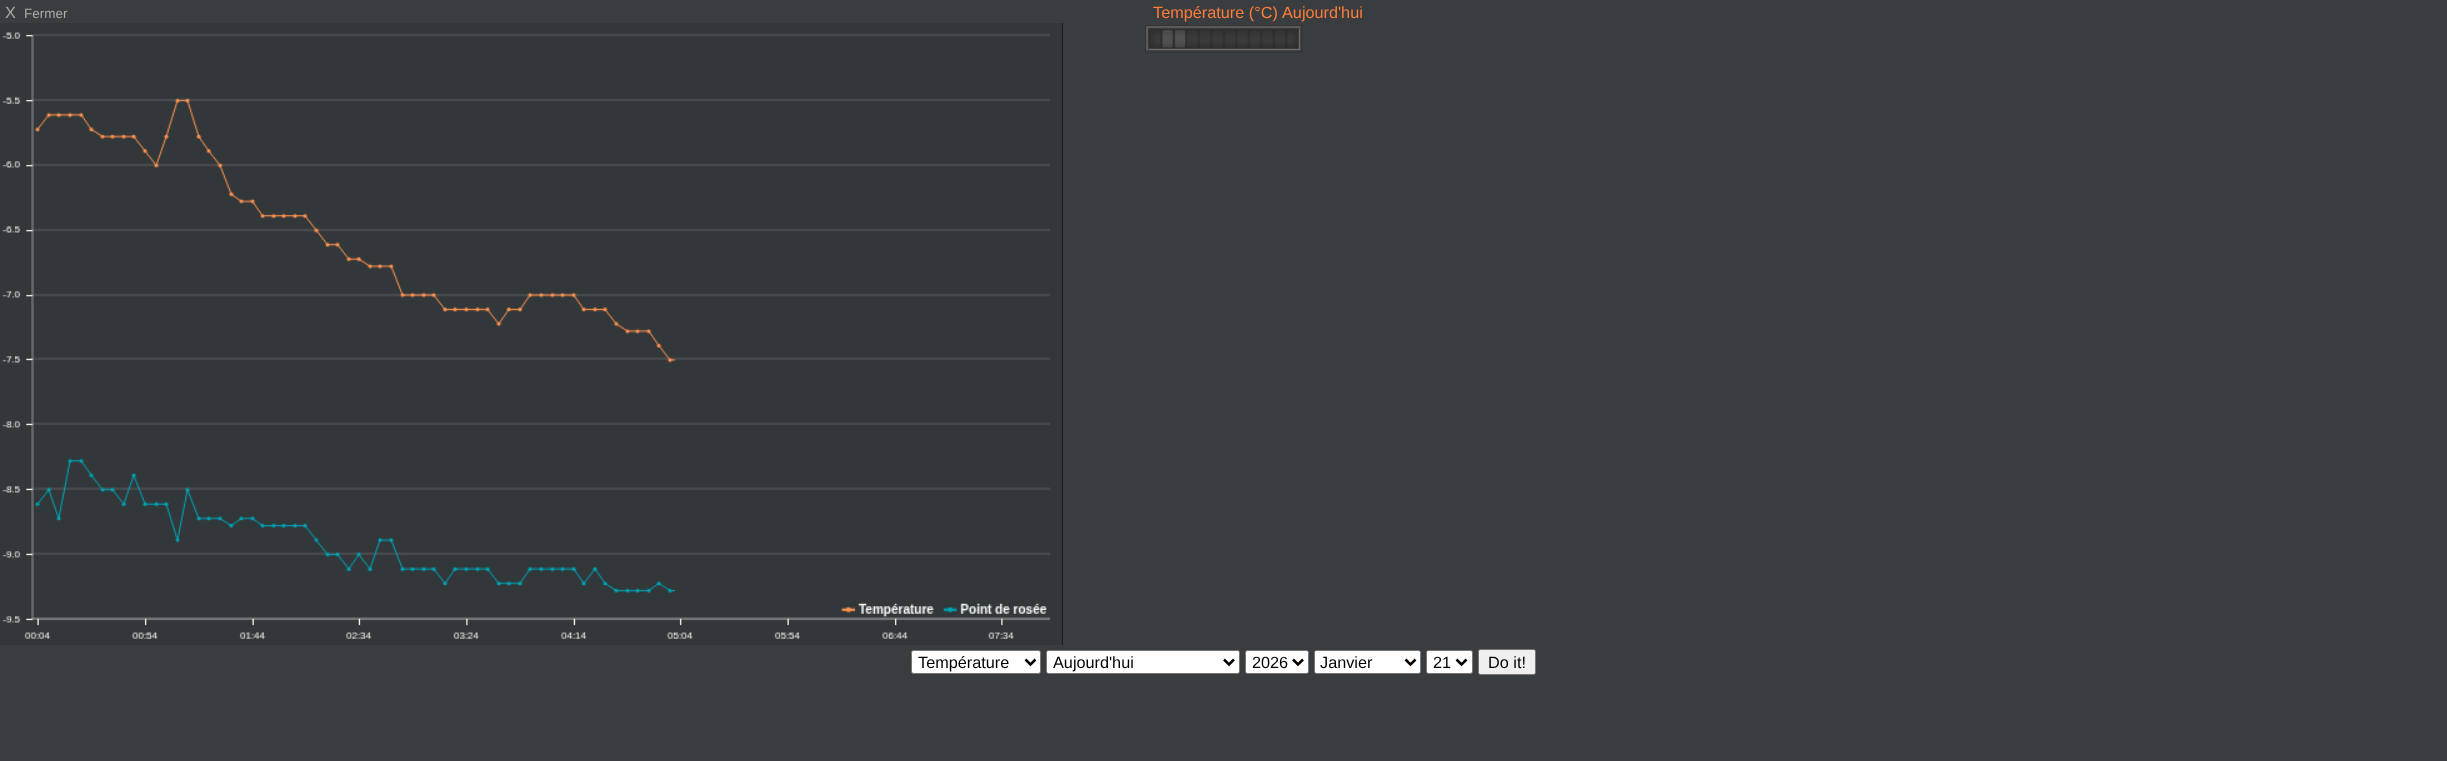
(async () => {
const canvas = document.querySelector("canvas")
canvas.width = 2447
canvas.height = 761
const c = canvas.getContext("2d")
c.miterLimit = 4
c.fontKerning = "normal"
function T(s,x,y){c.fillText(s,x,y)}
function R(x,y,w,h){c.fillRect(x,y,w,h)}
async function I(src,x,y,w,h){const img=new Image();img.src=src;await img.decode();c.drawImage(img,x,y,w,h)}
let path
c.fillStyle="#393d40"
R(0,0,2447,761)
await I("1.png",1145,25,158,28)
c.font="16.25px Liberation Sans"
c.fillStyle="#aaa"
T("X",5,18)
c.font="13.5px Liberation Sans"
T("Fermer",24,18)
c.font="16.25px Liberation Sans"
c.fillStyle="#ff7c39"
T("Température (°C)",1153,18)
T("Aujourd'hui",1282,18)
c.fillStyle="#000"
R(1062,23,1,622)
await I("2.png",0,23,1063,622)
c.fillStyle="#fff"
c.beginPath()
c.roundRect(911.5,650.5,129,23,2)
c.fill()
c.strokeStyle="#767676"
c.stroke()
path = new Path2D("M1025.5 659.5l5 5l5-5")
c.strokeStyle="#000"
c.lineWidth=2.5
c.stroke(path)
c.fillStyle="#000"
T("Température",918,668)
c.fillStyle="#fff"
c.beginPath()
c.roundRect(1046.5,650.5,193,23,2)
c.fill()
c.strokeStyle="#767676"
c.lineWidth=1
c.stroke()
path = new Path2D("M1224 659.5l5 5l5-5")
c.strokeStyle="#000"
c.lineWidth=2.5
c.stroke(path)
c.fillStyle="#000"
T("Aujourd'hui",1053,668)
c.fillStyle="#fff"
c.beginPath()
c.roundRect(1245.5,650.5,63,23,2)
c.fill()
c.strokeStyle="#767676"
c.lineWidth=1
c.stroke()
path = new Path2D("M1293 659.5l5 5l5-5")
c.strokeStyle="#000"
c.lineWidth=2.5
c.stroke(path)
c.fillStyle="#000"
T("2026",1252,668)
c.fillStyle="#fff"
c.beginPath()
c.roundRect(1314.5,650.5,106,23,2)
c.fill()
c.strokeStyle="#767676"
c.lineWidth=1
c.stroke()
path = new Path2D("M1405.5 659.5l5 5l5-5")
c.strokeStyle="#000"
c.lineWidth=2.5
c.stroke(path)
c.fillStyle="#000"
T("Janvier",1320,668)
c.fillStyle="#fff"
c.beginPath()
c.roundRect(1426.5,650.5,46,23,2)
c.fill()
c.strokeStyle="#767676"
c.lineWidth=1
c.stroke()
path = new Path2D("M1456.5 659.5l5 5l5-5")
c.strokeStyle="#000"
c.lineWidth=2.5
c.stroke(path)
c.fillStyle="#000"
T("21",1433,668)
c.fillStyle="#efefef"
c.beginPath()
c.roundRect(1478.5,649.5,57,25,2)
c.fill()
c.strokeStyle="#767676"
c.lineWidth=1
c.stroke()
c.fillStyle="#000"
T("Do it!",1488,668)
})()
